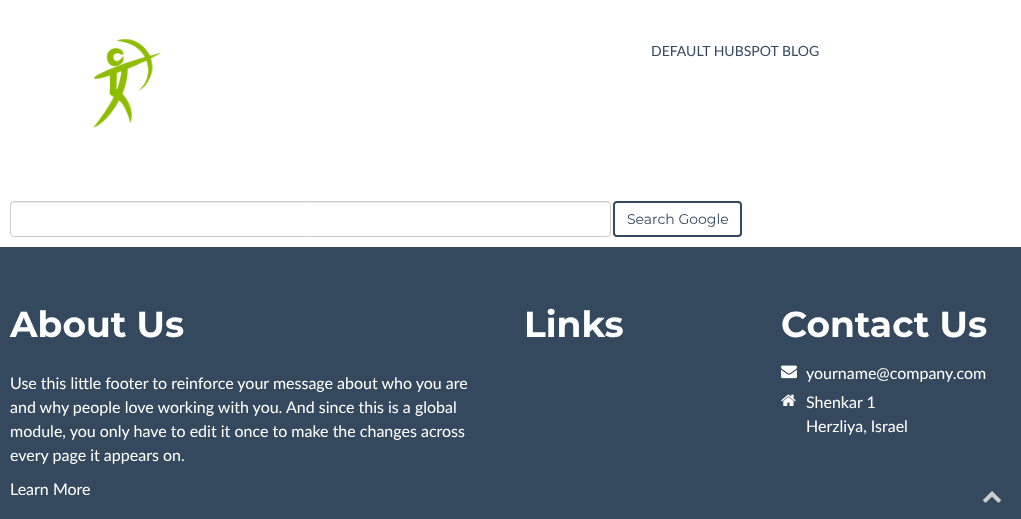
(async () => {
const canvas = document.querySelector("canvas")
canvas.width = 1021
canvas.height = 519
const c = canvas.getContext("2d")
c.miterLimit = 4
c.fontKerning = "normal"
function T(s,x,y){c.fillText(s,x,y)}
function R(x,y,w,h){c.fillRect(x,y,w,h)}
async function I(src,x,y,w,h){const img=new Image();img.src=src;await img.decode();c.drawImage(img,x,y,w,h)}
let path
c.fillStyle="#fff"
R(0,0,1021,519)
await I("1.png",93,38,68,90)
c.font="14px Lato"
c.fillStyle="#34495e"
T("DEFAULT HUBSPOT BLOG",651,56)
c.fillStyle="#ececec"
path = new Path2D("M14 203h593c2 0 3 1 3 3v-1c0-2-1-3-3-3h-593c-2 0-3 1-3 3v1c0-2 1-3 3-3z")
c.fill(path)
c.beginPath()
c.roundRect(10.5,201.5,600,35,3.5)
c.strokeStyle="#ccc"
c.stroke()
c.beginPath()
c.roundRect(614,202,127,34,3)
c.strokeStyle="#34495e"
c.lineWidth=2
c.stroke()
c.font="14px Montserrat"
c.fillStyle="#34495e"
T("Search Google",627,224)
R(0,247,1021,272)
c.font="bold 36px Montserrat"
c.fillStyle="#fff"
T("About Us",10,337)
c.font="16px Lato"
T("Use this little footer to reinforce your message about who you are",10,389)
T("and why people love working with you. And since this is a global",10,413)
T("module, you only have to edit it once to make the changes across",10,437)
T("every page it appears on.",10,461)
T("Learn More",10,495)
c.font="bold 36px Montserrat"
T("Links",524,337)
T("Contact Us",781,337)
await I("2.png",781,365,16,14)
c.font="16px Lato"
T("yourname@company.com",806,379)
await I("3.png",781,394,15,12)
T("Shenkar 1",806,408)
T("Herzliya, Israel",806,432)
await I("4.png",983,491,18,12)
})()
